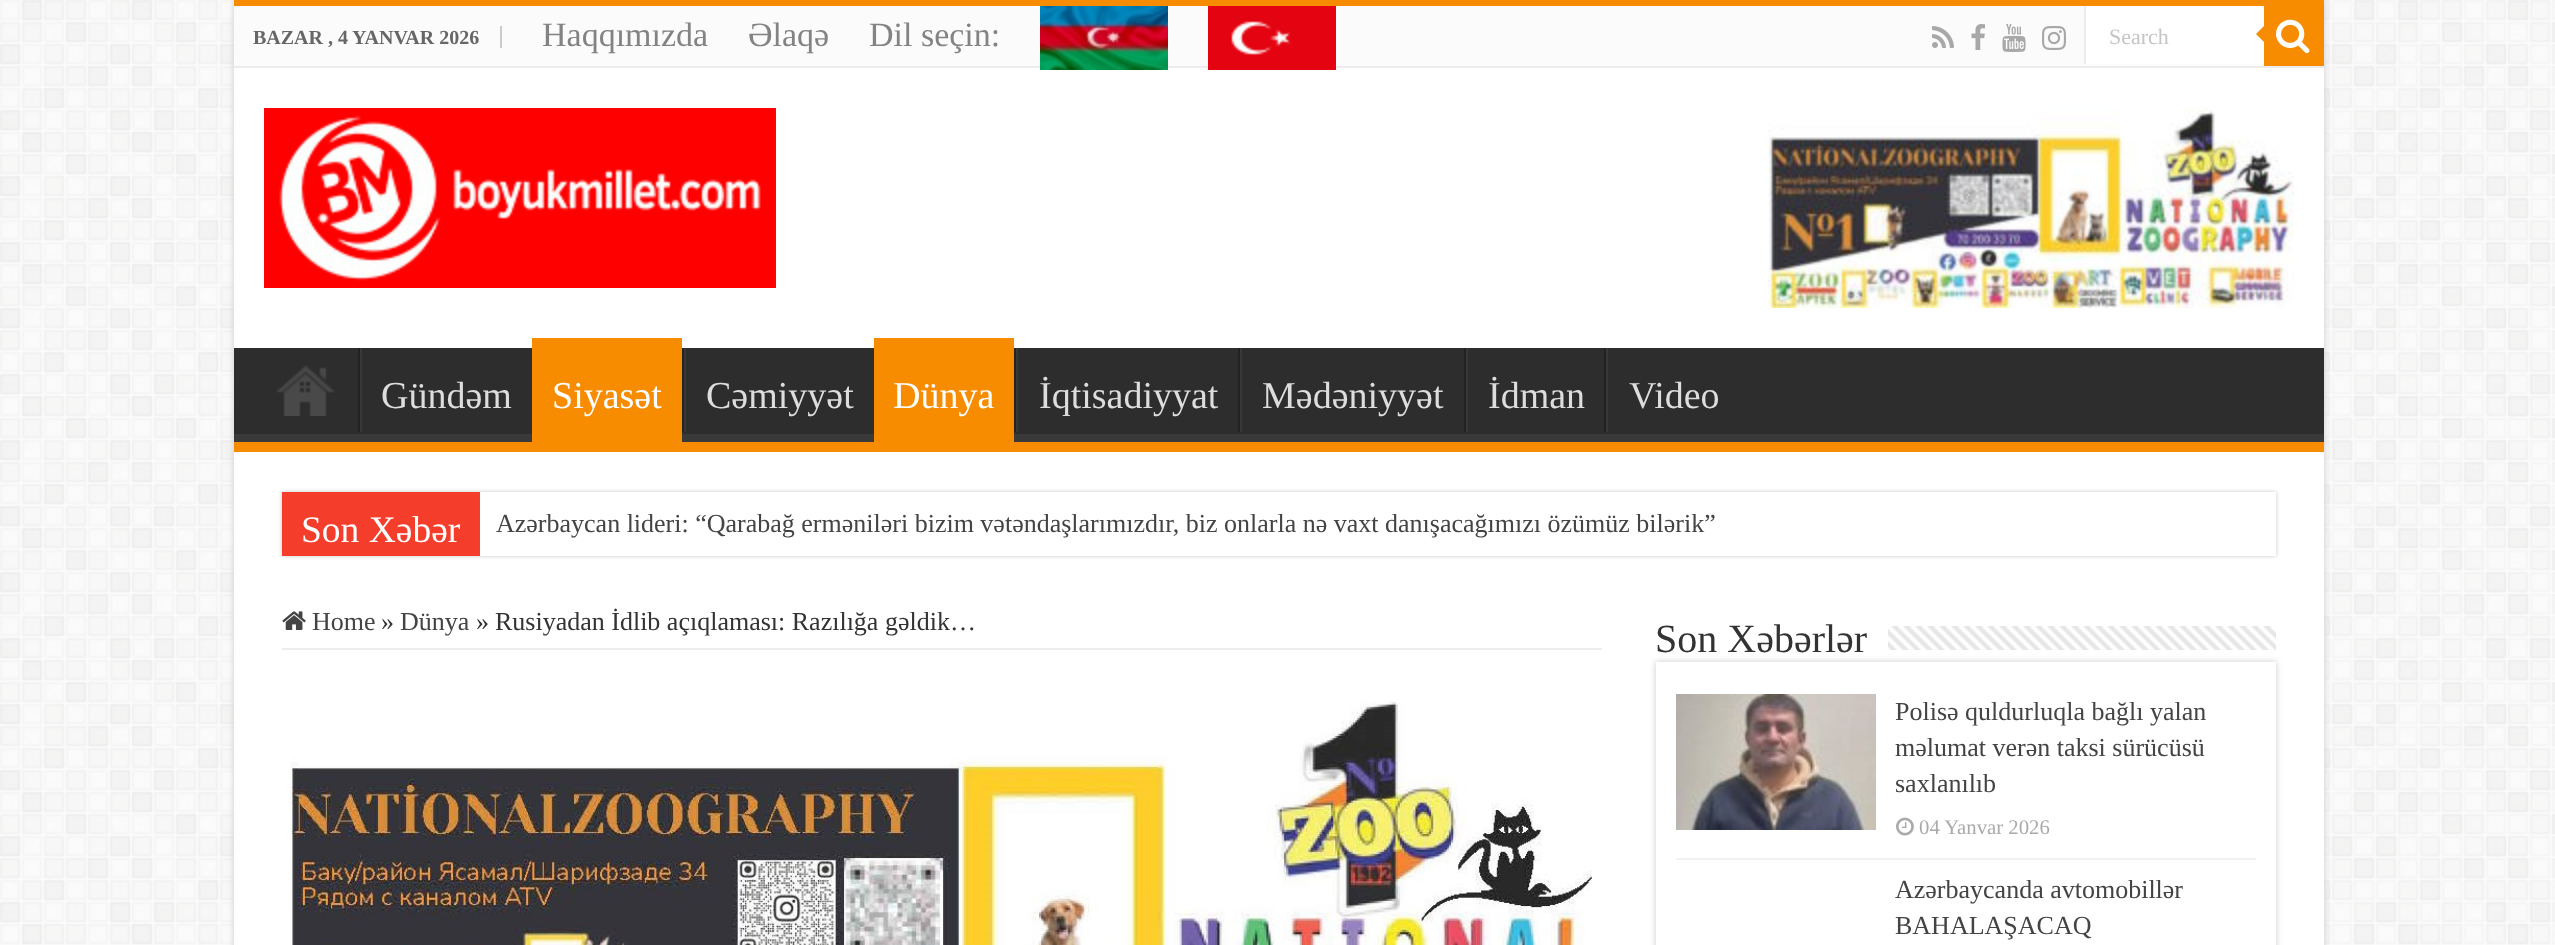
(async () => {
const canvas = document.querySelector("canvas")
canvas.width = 2555
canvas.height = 945
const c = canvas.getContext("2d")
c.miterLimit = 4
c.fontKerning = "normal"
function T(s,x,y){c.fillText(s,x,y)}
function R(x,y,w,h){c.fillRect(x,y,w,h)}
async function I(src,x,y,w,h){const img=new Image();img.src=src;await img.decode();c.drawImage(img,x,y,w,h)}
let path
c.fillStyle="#fff"
R(0,0,2555,945)
await I("1.png",0,0,2555,945)
c.fillStyle="#cacaca"
c.filter="blur(3px)"
c.beginPath()
c.rect(234,0,2090,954)
c.fill()
c.filter="none"
c.fillStyle="#fff"
R(234,68,2090,877)
c.fillStyle="#f88c00"
R(234,0,2090,6)
c.fillStyle="#fbfbfb"
R(234,6,2030,60)
c.fillStyle="#ececec"
R(234,66,2090,2)
c.fillStyle="#ccc"
R(500,26,2,22)
c.font="bold 20px Liberation Serif"
c.fillStyle="#666"
T("BAZAR , 4",253,44)
T("YANVAR 2026",352,44)
c.font="34px Liberation Serif"
c.fillStyle="#838383"
T("Haqqımızda",542,46)
T("Əlaqə",748,46)
T("Dil seçin:",869,46)
await I("2.png",1040,6,128,64)
await I("3.png",1208,6,128,64)
await I("4.png",1932,26,22,22)
await I("5.png",1971,24,14,26)
await I("6.png",2002,24,24,28)
await I("7.png",2042,26,24,24)
c.fillStyle="#fff"
R(2086,6,178,58)
c.fillStyle="#ececec"
R(2084,6,2,58)
c.font="22px Liberation Serif"
c.fillStyle="#c5c5c5"
T("Search",2109,44)
c.fillStyle="#f88c00"
R(2264,6,60,60)
await I("8.png",2276,19,34,35)
path = new Path2D("M2264 26v16l-8-8z")
c.fill(path)
await I("9.png",264,108,512,180)
await I("10.png",1768,108,526,200)
c.fillStyle="#2d2d2d"
R(234,348,2090,86)
c.save()
c.beginPath()
c.rect(234,348,2090,94)
c.clip()
c.fillStyle="#393939"
path = new Path2D("M36 150h2486v490h-2486zm196 186h2090c1 0 2 1 2 2v94c0 1-1 2-2 2h-2090c-1 0-2-1-2-2v-94c0-1 1-2 2-2z")
c.fill(path,"evenodd")
c.restore()
c.fillStyle="#f88c00"
R(234,442,2090,10)
await I("11.png",276,365,59,51)
c.fillStyle="#222"
R(358,348,2,84)
c.fillStyle="#383838"
R(360,348,2,84)
c.font="38px Liberation Serif"
c.fillStyle="#ddd"
T("Gündəm",381,408)
c.fillStyle="#f88c00"
R(532,338,150,104)
c.fillStyle="#fff"
T("Siyasət",552,408)
c.fillStyle="#222"
R(682,348,2,84)
c.fillStyle="#383838"
R(684,348,2,84)
c.fillStyle="#ddd"
T("Cəmiyyət",706,408)
c.fillStyle="#f88c00"
R(874,338,140,104)
c.fillStyle="#fff"
T("Dünya",893,408)
c.fillStyle="#222"
R(1014,348,2,84)
c.fillStyle="#383838"
R(1016,348,2,84)
c.fillStyle="#ddd"
T("İqtisadiyyat",1039,408)
c.fillStyle="#222"
R(1238,348,2,84)
c.fillStyle="#383838"
R(1240,348,2,84)
c.fillStyle="#ddd"
T("Mədəniyyət",1262,408)
c.fillStyle="#222"
R(1464,348,2,84)
c.fillStyle="#383838"
R(1466,348,2,84)
c.fillStyle="#ddd"
T("İdman",1488,408)
c.fillStyle="#222"
R(1604,348,2,84)
c.fillStyle="#383838"
R(1606,348,2,84)
c.fillStyle="#ddd"
T("Video",1629,408)
c.save()
path = new Path2D("M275 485h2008v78h-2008zm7 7h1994v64h-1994z")
c.clip(path,"evenodd")
c.fillStyle="#cacaca"
c.filter="blur(2px)"
c.beginPath()
c.rect(282,492,1994,64)
c.fill()
c.filter="none"
c.restore()
c.fillStyle="#f43d2a"
R(282,492,198,64)
c.font="37.5px Liberation Serif"
c.fillStyle="#fff"
T("Son Xəbər",301,542)
c.font="26px Liberation Serif"
c.fillStyle="#444"
T("Azərbaycan lideri: “Qarabağ erməniləri bizim vətəndaşlarımızdır, biz onlarla nə vaxt danışacağımızı özümüz bilərik”",496,532)
c.fillStyle="#eee"
R(282,648,1320,2)
await I("12.png",282,611,24,19)
c.fillStyle="#444"
T("Home",312,630)
c.fillStyle="#333"
T("»",381,630)
c.fillStyle="#444"
T("Dünya",400,630)
c.fillStyle="#333"
T("»",476,630)
T("Rusiyadan İdlib açıqlaması: Razılığa gəldik…",495,630)
await I("13.png",290,700,1302,245)
c.save()
path = new Path2D("M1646 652h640v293h-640zm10 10h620v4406h-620z")
c.clip(path,"evenodd")
c.fillStyle="#cacaca"
c.filter="blur(3px)"
c.beginPath()
c.rect(1656,662,620,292)
c.fill()
c.filter="none"
c.restore()
c.font="40px Liberation Serif"
T("Son Xəbərlər",1655,652)
await I("14.png",1888,626,388,24)
c.fillStyle="#f2f2f2"
R(1676,858,580,2)
await I("15.png",1676,694,200,136)
c.font="26px Liberation Serif"
c.fillStyle="#444"
T("Polisə quldurluqla bağlı yalan",1895,720)
T("məlumat verən taksi sürücüsü",1895,756)
T("saxlanılıb",1895,792)
await I("16.png",1896,817,18,19)
c.font="20.75px Liberation Serif"
c.fillStyle="#aaa"
T("04 Yanvar 2026",1919,834)
c.font="26px Liberation Serif"
c.fillStyle="#444"
T("Azərbaycanda avtomobillər",1895,898)
T("BAHALAŞACAQ",1895,934)
})()
